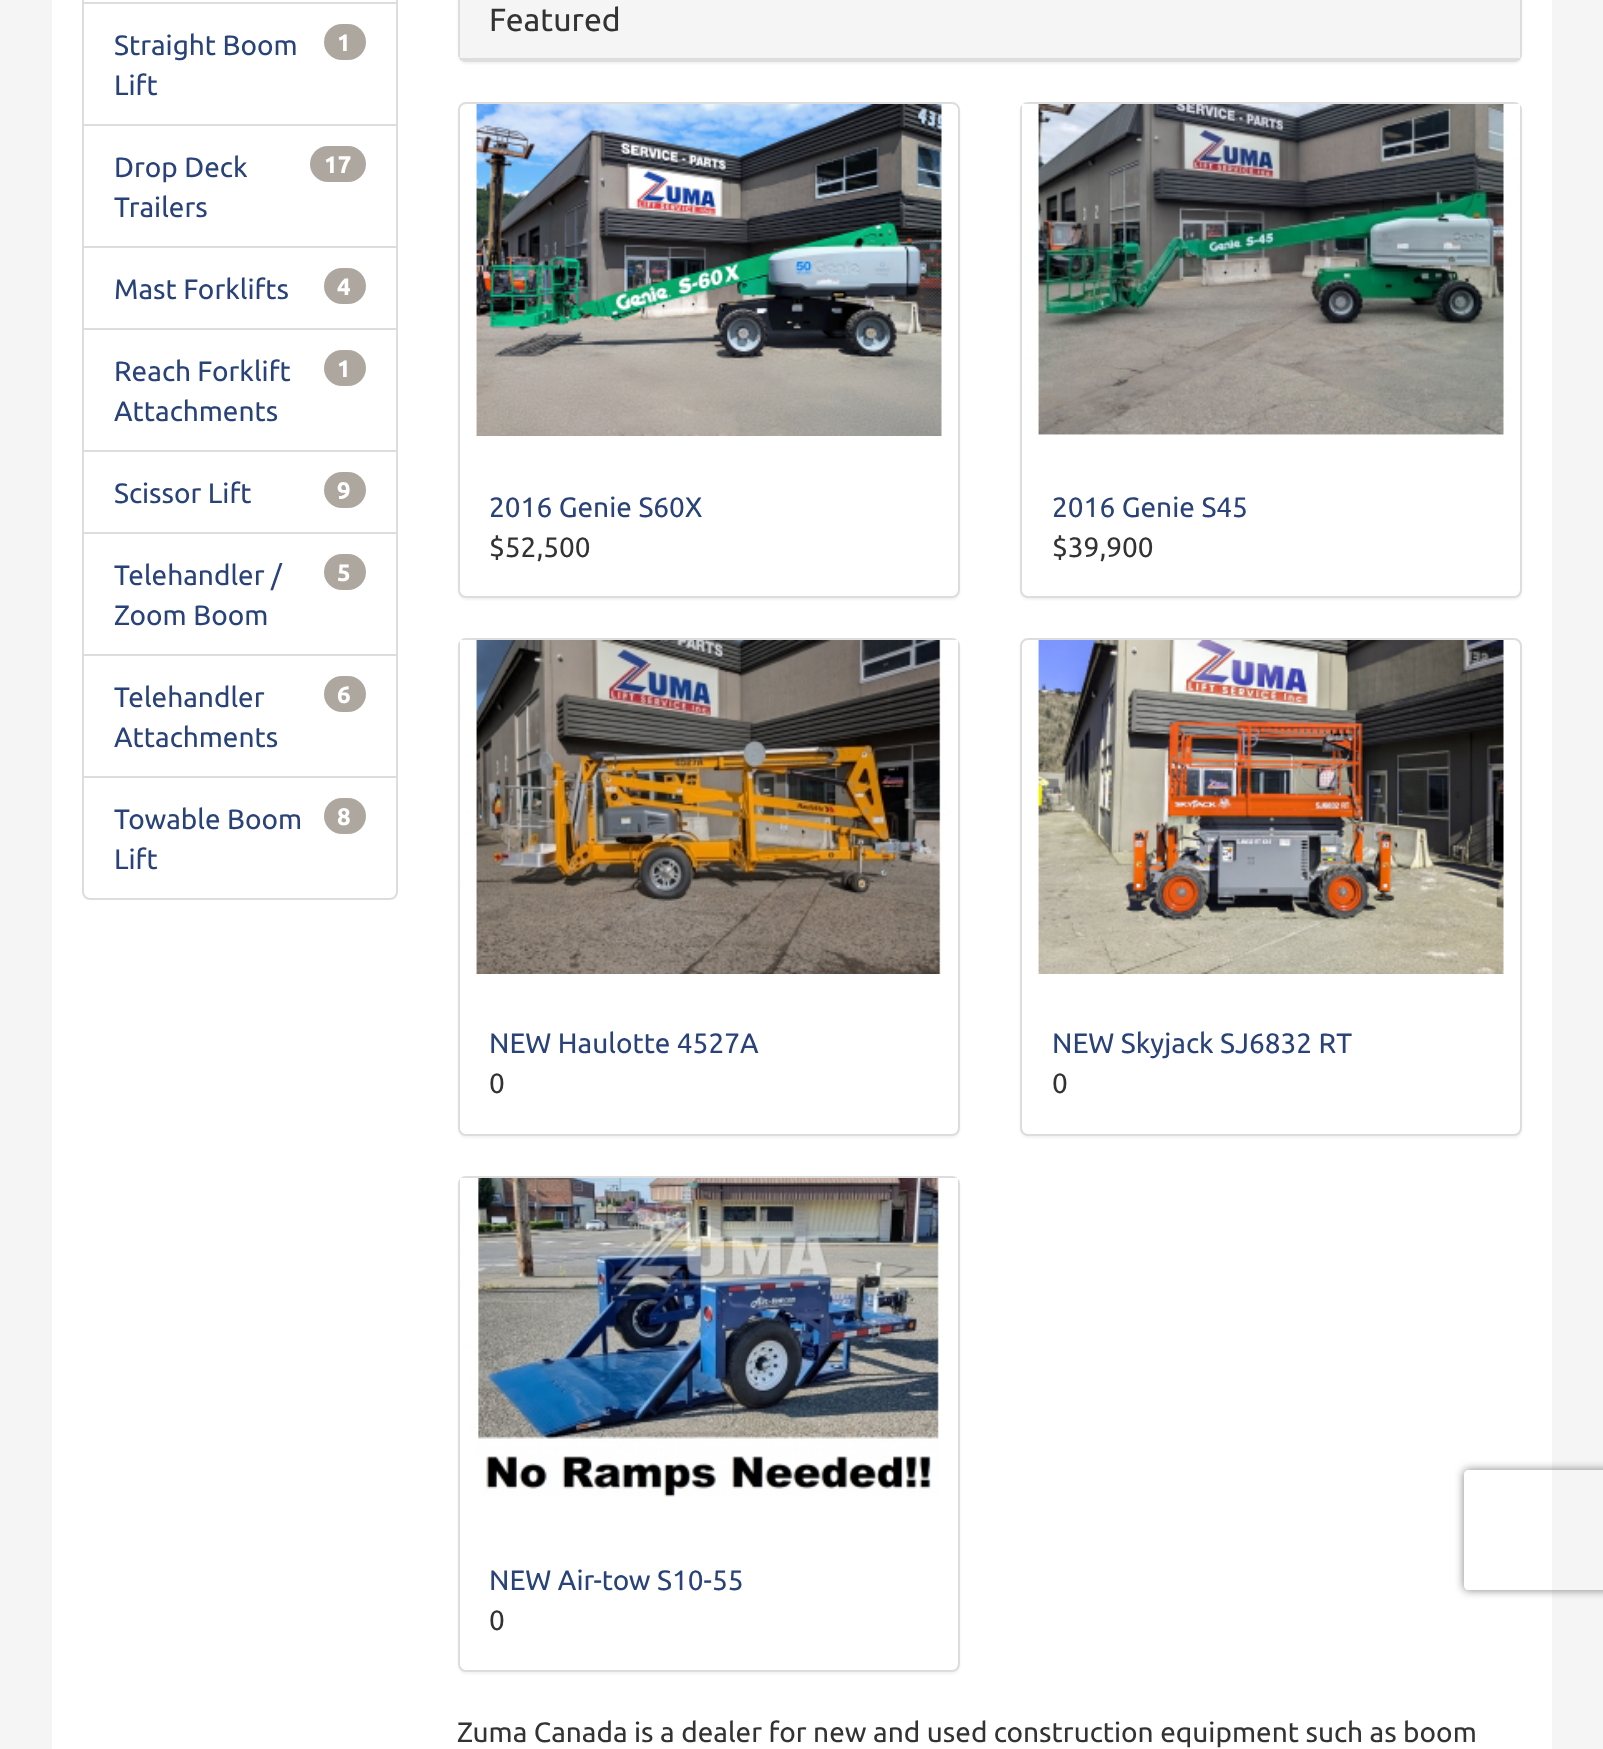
(async () => {
const canvas = document.querySelector("canvas")
canvas.width = 1603
canvas.height = 1749
const c = canvas.getContext("2d")
c.miterLimit = 4
c.fontKerning = "normal"
function T(s,x,y){c.fillText(s,x,y)}
function R(x,y,w,h){c.fillRect(x,y,w,h)}
function Q(x,y,w,h,r){c.beginPath();c.roundRect(x,y,w,h,r);c.fill()}
async function I(src,x,y,w,h){const img=new Image();img.src=src;await img.decode();c.drawImage(img,x,y,w,h)}
let path
c.fillStyle="#f5f5f5"
R(0,0,1603,1749)
c.fillStyle="#fff"
R(52,0,1500,1749)
c.strokeStyle="#ddd"
c.lineWidth=2
c.strokeRect(83,-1,314,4)
c.strokeRect(83,3,314,122)
c.font="28px Ubuntu"
c.fillStyle="#294278"
T("Straight Boom",114,55)
c.fillStyle="#aea79f"
Q(324,24,42,36,18)
c.font="bold 24px Ubuntu"
c.fillStyle="#fff"
T("1",337,51)
c.font="28px Ubuntu"
c.fillStyle="#294278"
T("Lift",114,95)
c.strokeRect(83,125,314,122)
T("Drop Deck",114,177)
c.fillStyle="#aea79f"
Q(310,146,56,36,18)
c.font="bold 24px Ubuntu"
c.fillStyle="#fff"
T("17",324,173)
c.font="28px Ubuntu"
c.fillStyle="#294278"
T("Trailers",114,217)
c.strokeRect(83,247,314,82)
T("Mast Forklifts",114,299)
c.fillStyle="#aea79f"
Q(324,268,42,36,18)
c.font="bold 24px Ubuntu"
c.fillStyle="#fff"
T("4",337,295)
c.strokeRect(83,329,314,122)
c.font="28px Ubuntu"
c.fillStyle="#294278"
T("Reach Forklift",114,381)
c.fillStyle="#aea79f"
Q(324,350,42,36,18)
c.font="bold 24px Ubuntu"
c.fillStyle="#fff"
T("1",337,377)
c.font="28px Ubuntu"
c.fillStyle="#294278"
T("Attachments",114,421)
c.strokeRect(83,451,314,82)
T("Scissor Lift",114,503)
c.fillStyle="#aea79f"
Q(324,472,42,36,18)
c.font="bold 24px Ubuntu"
c.fillStyle="#fff"
T("9",337,499)
c.strokeRect(83,533,314,122)
c.font="28px Ubuntu"
c.fillStyle="#294278"
T("Telehandler /",114,585)
c.fillStyle="#aea79f"
Q(324,554,42,36,18)
c.font="bold 24px Ubuntu"
c.fillStyle="#fff"
T("5",337,581)
c.font="28px Ubuntu"
c.fillStyle="#294278"
T("Zoom Boom",114,625)
c.strokeRect(83,655,314,122)
T("Telehandler",114,707)
c.fillStyle="#aea79f"
Q(324,676,42,36,18)
c.font="bold 24px Ubuntu"
c.fillStyle="#fff"
T("6",337,703)
c.font="28px Ubuntu"
c.fillStyle="#294278"
T("Attachments",114,747)
c.fillStyle="#fff"
c.beginPath()
c.roundRect(83,777,314,122,[0,0,7,7])
c.fill()
c.stroke()
c.fillStyle="#294278"
T("Towable Boom",114,829)
c.fillStyle="#aea79f"
Q(324,798,42,36,18)
c.font="bold 24px Ubuntu"
c.fillStyle="#fff"
T("8",337,825)
c.font="28px Ubuntu"
c.fillStyle="#294278"
T("Lift",114,869)
c.fillStyle="#0000000d"
c.filter="blur(1px)"
c.beginPath()
c.roundRect(458,-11,1064,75,8)
c.fill()
c.filter="none"
c.beginPath()
c.roundRect(459,-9,1062,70,7)
c.stroke()
c.fillStyle="#f5f5f5"
R(460,0,1060,58)
c.fillStyle="#ddd"
R(460,58,1060,2)
c.font="32px Ubuntu"
c.fillStyle="#333"
T("Featured",489,31)
c.fillStyle="#0000000d"
c.filter="blur(1px)"
c.beginPath()
c.roundRect(458,104,502,496,8)
c.fill()
c.filter="none"
c.fillStyle="#fff"
c.beginPath()
c.roundRect(459,103,500,494,7)
c.fill()
c.stroke()
await I("1.png",476,104,466,332)
c.font="28px Ubuntu"
c.fillStyle="#294278"
T("2016 Genie S60X",489,517)
c.fillStyle="#333"
T("$52,500",489,557)
c.fillStyle="#0000000d"
c.filter="blur(1px)"
c.beginPath()
c.roundRect(1020,104,502,496,8)
c.fill()
c.filter="none"
c.fillStyle="#fff"
c.beginPath()
c.roundRect(1021,103,500,494,7)
c.fill()
c.stroke()
await I("2.png",1022,104,498,332)
c.fillStyle="#294278"
T("2016 Genie S45",1052,517)
c.fillStyle="#333"
T("$39,900",1052,557)
c.fillStyle="#0000000d"
c.filter="blur(1px)"
c.beginPath()
c.roundRect(458,640,502,498,8)
c.fill()
c.filter="none"
c.fillStyle="#fff"
c.beginPath()
c.roundRect(459,639,500,496,7)
c.fill()
c.stroke()
await I("3.png",460,640,498,334)
c.fillStyle="#294278"
T("NEW Haulotte 4527A",489,1053)
c.fillStyle="#333"
T("0",489,1093)
c.fillStyle="#0000000d"
c.filter="blur(1px)"
c.beginPath()
c.roundRect(1020,640,502,498,8)
c.fill()
c.filter="none"
c.fillStyle="#fff"
c.beginPath()
c.roundRect(1021,639,500,496,7)
c.fill()
c.stroke()
await I("4.png",1038,640,466,334)
c.fillStyle="#294278"
T("NEW Skyjack SJ6832 RT",1052,1053)
c.fillStyle="#333"
T("0",1052,1093)
c.fillStyle="#0000000d"
c.filter="blur(1px)"
c.beginPath()
c.roundRect(458,1178,502,496,8)
c.fill()
c.filter="none"
c.fillStyle="#fff"
c.beginPath()
c.roundRect(459,1177,500,494,7)
c.fill()
c.stroke()
await I("5.png",460,1178,498,319)
c.fillStyle="#294278"
T("NEW Air-tow S10-55",489,1590)
c.fillStyle="#333"
T("0",489,1630)
T("Zuma Canada is a dealer for new and used construction equipment such as boom",457,1742)
c.save()
path = new Path2D("M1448 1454h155v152h-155zm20 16h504c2 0 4 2 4 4v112c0 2-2 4-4 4h-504c-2 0-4-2-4-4v-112c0-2 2-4 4-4z")
c.clip(path,"evenodd")
c.fillStyle="#808080"
c.filter="blur(5px)"
c.beginPath()
c.roundRect(1464,1470,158,120,4)
c.fill()
c.filter="none"
c.restore()
})()
